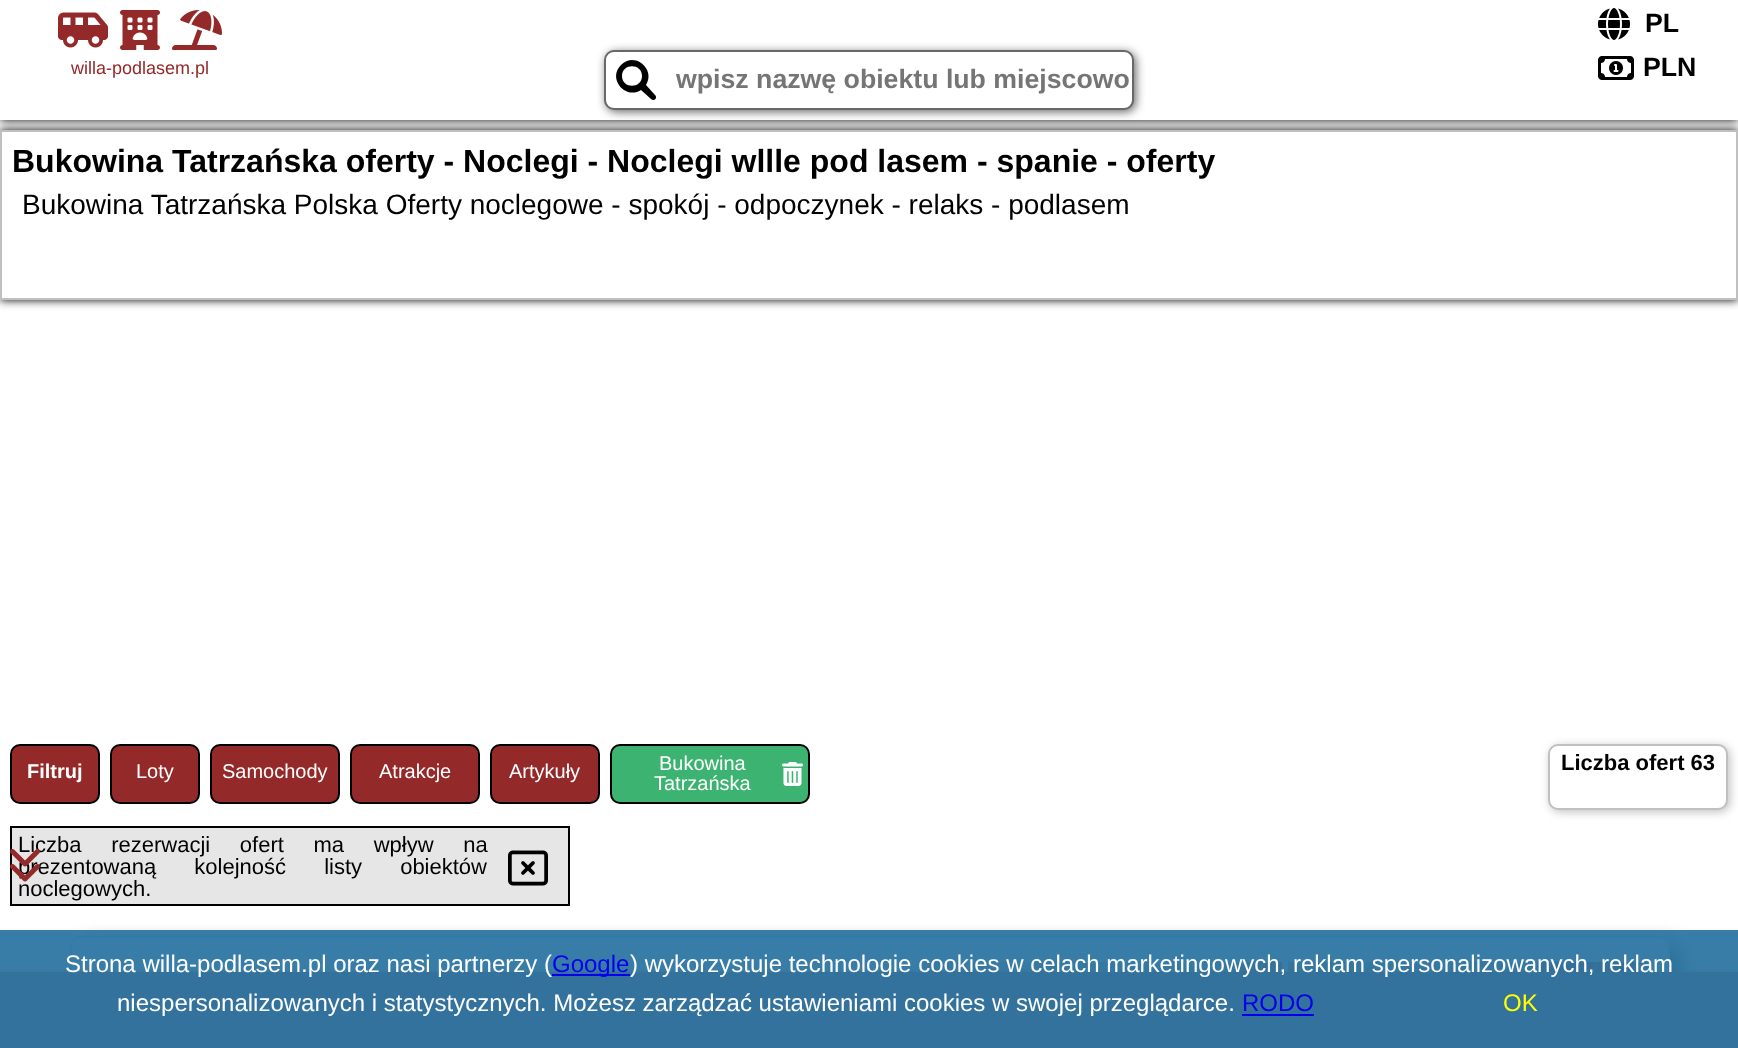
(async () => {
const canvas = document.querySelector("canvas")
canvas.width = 1738
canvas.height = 1048
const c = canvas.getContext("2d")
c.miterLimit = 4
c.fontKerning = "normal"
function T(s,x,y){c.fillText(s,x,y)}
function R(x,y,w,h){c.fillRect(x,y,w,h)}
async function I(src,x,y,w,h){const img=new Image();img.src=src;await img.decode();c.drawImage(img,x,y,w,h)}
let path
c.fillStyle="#fff"
R(0,0,1738,1048)
c.save()
path = new Path2D("M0 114h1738v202h-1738zm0 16h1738v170h-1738z")
c.clip(path,"evenodd")
c.fillStyle="#000"
c.filter="blur(5px)"
c.beginPath()
c.rect(0,130,1738,170)
c.fill()
c.filter="none"
c.restore()
c.strokeStyle="#c0c0c0"
c.lineWidth=2
c.strokeRect(1,131,1736,168)
c.fillStyle="#000"
c.filter="blur(5px)"
c.beginPath()
c.rect(0,0,1738,120)
c.fill()
c.filter="none"
c.fillStyle="#fff"
R(0,0,1738,120)
await I("1.png",1598,8,32,32)
c.font="bold 26.7px Liberation Sans"
c.fillStyle="#000"
T("PL",1645,32)
await I("2.png",58,12,50,36)
await I("3.png",120,10,40,40)
await I("4.png",172,10,50,40)
c.font="18px Liberation Sans"
c.fillStyle="#942929"
T("willa-podlasem.pl",71,74)
c.fillStyle="#676868"
c.filter="blur(5px)"
c.beginPath()
c.roundRect(606,52,530,60,10)
c.fill()
c.filter="none"
c.fillStyle="#fff"
c.beginPath()
c.roundRect(605,51,528,58,9)
c.fill()
c.strokeStyle="#676868"
c.stroke()
c.fillStyle="#000"
path = new Path2D("M655 95l-9-10c10-15-11-34-25-20c-14 14 5 35 20 25l10 9c3 3 7-1 4-4zm-33-19c0-13 20-13 20 0c0 13-20 13-20 0z")
c.fill(path)
c.font="bold 26.7px Liberation Sans"
c.fillStyle="#757575"
T("wpisz nazwę obiektu lub miejscowo",676,88)
await I("5.png",1598,56,36,24)
c.fillStyle="#000"
T("PLN",1643,76)
c.font="bold 32px Liberation Sans"
T("Bukowina Tatrzańska oferty - Noclegi - Noclegi wllle pod lasem - spanie - oferty",12,172)
c.font="28px Liberation Sans"
T("Bukowina Tatrzańska Polska Oferty noclegowe - spokój - odpoczynek - relaks - podlasem",22,214)
c.fillStyle="#942929"
c.beginPath()
c.roundRect(11,745,88,58,9)
c.fill()
c.strokeStyle="#000"
c.stroke()
c.font="bold 20px Liberation Sans"
c.fillStyle="#fff"
T("Filtruj",27,778)
c.fillStyle="#942929"
c.beginPath()
c.roundRect(111,745,88,58,9)
c.fill()
c.stroke()
c.font="20px Liberation Sans"
c.fillStyle="#fff"
T("Loty",136,778)
c.fillStyle="#942929"
c.beginPath()
c.roundRect(211,745,128,58,9)
c.fill()
c.stroke()
c.fillStyle="#fff"
T("Samochody",222,778)
c.fillStyle="#942929"
c.beginPath()
c.roundRect(351,745,128,58,9)
c.fill()
c.stroke()
c.fillStyle="#fff"
T("Atrakcje",379,778)
c.fillStyle="#942929"
c.beginPath()
c.roundRect(491,745,108,58,9)
c.fill()
c.stroke()
c.fillStyle="#fff"
T("Artykuły",509,778)
c.fillStyle="#3cb371"
c.beginPath()
c.roundRect(611,745,198,58,9)
c.fill()
c.stroke()
c.fillStyle="#fff"
T("Bukowina",659,770)
T("Tatrzańska",654,790)
await I("6.png",782,762,21,24)
c.fillStyle="#c0c0c0"
c.filter="blur(5px)"
c.beginPath()
c.roundRect(1550,746,180,66,10)
c.fill()
c.filter="none"
c.fillStyle="#fff"
c.beginPath()
c.roundRect(1549,745,178,64,9)
c.fill()
c.strokeStyle="#c0c0c0"
c.stroke()
c.font="bold 22px Liberation Sans"
c.fillStyle="#000"
T("Liczba ofert 63",1561,770)
c.fillStyle="#e6e6e6"
c.beginPath()
c.rect(11,827,558,78)
c.fill()
c.strokeStyle="#000"
c.stroke()
c.wordSpacing="23.5px"
c.font="22px Liberation Sans"
c.fillStyle="#000"
T("Liczba rezerwacji ofert ma wpływ na",18,852)
c.wordSpacing="32px"
T("prezentowaną kolejność listy obiektów",18,874)
await I("7.png",508,850,40,36)
c.wordSpacing="0px"
T("noclegowych.",18,896)
await I("8.png",10,849,30,33)
c.filter="blur(10px)"
c.beginPath()
c.roundRect(80,946,1600,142,10)
c.fill()
c.filter="none"
c.fillStyle="#fff"
c.beginPath()
c.roundRect(70,936,1600,36,[10,10,0,0])
c.fill()
c.beginPath()
c.roundRect(71,937,1598,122,9)
c.strokeStyle="#c0c0c0"
c.stroke()
await I("9.png",922,962,360,10)
await I("10.png",1288,962,360,10)
c.fillStyle="#942929"
c.filter="blur(2px)"
c.beginPath()
c.rect(0,972,1738,76)
c.fill()
c.filter="none"
R(0,972,1738,76)
c.fillStyle="#2d76a2f2"
R(0,930,1738,118)
c.font="24px Liberation Sans"
c.fillStyle="#fff"
T("Strona willa-podlasem.pl oraz nasi partnerzy (",65,972)
c.fillStyle="#00e"
R(552,974,78,2)
T("Google",552,972)
c.fillStyle="#fff"
T(") wykorzystuje technologie cookies w celach marketingowych, reklam spersonalizowanych, reklam",630,972)
T("niespersonalizowanych i statystycznych. Możesz zarządzać ustawieniami cookies w swojej przeglądarce.",117,1011)
c.fillStyle="#00e"
T("RODO",1242,1011)
R(1242,1014,72,2)
c.fillStyle="#ff0"
T("OK",1503,1011)
})()
